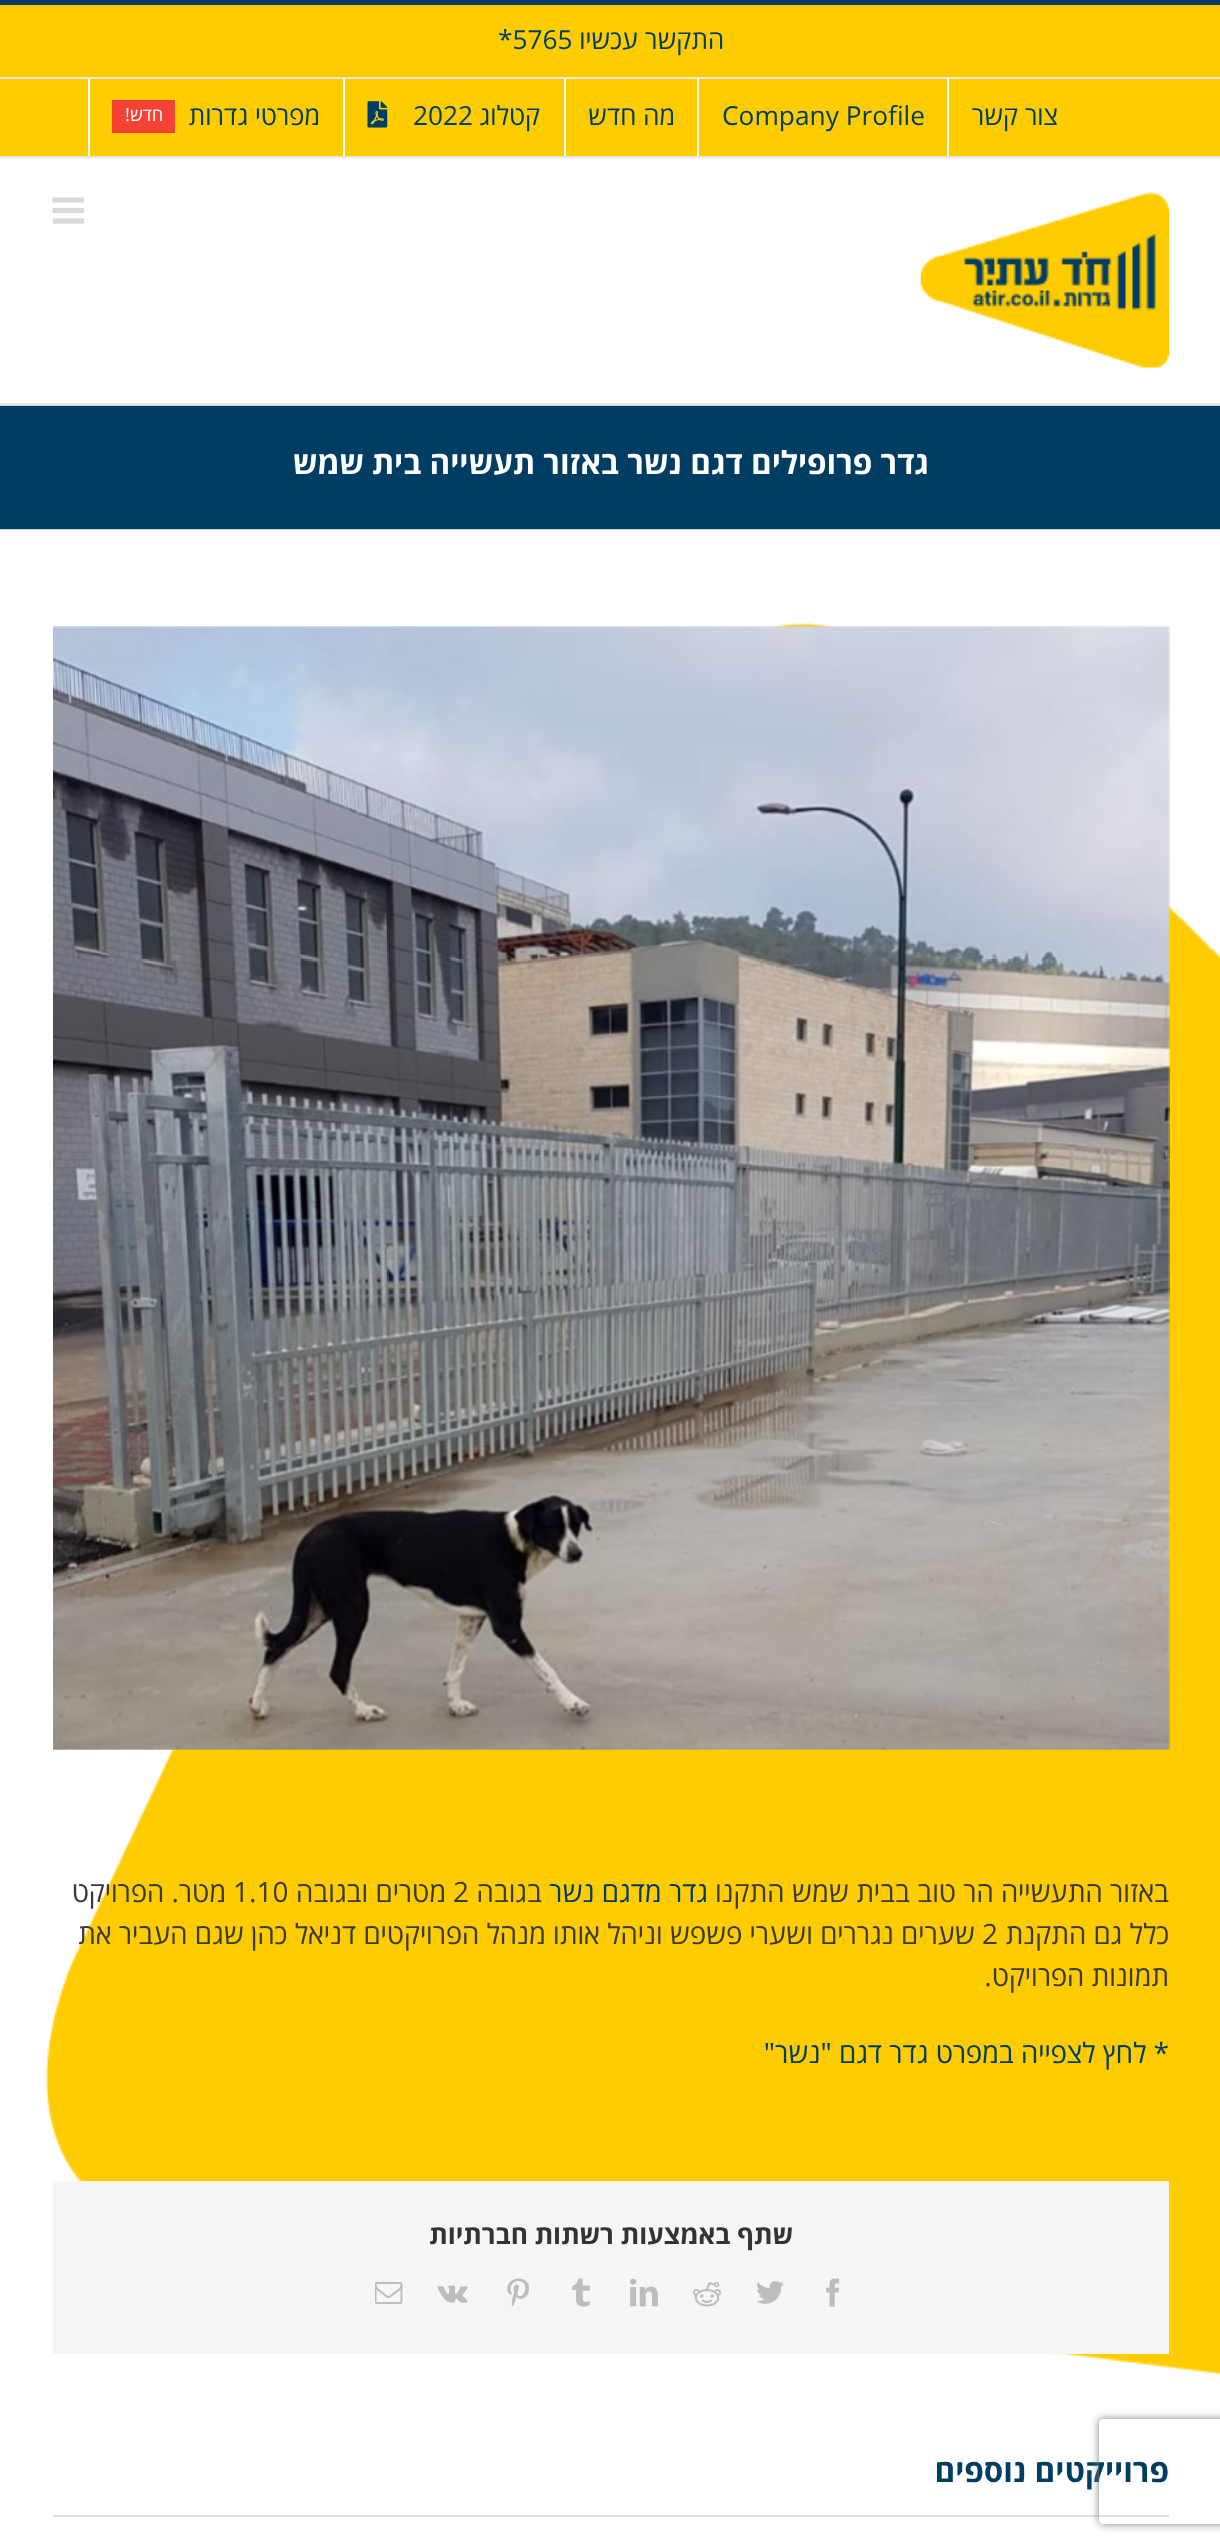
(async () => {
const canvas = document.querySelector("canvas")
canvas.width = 1220
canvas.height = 2547
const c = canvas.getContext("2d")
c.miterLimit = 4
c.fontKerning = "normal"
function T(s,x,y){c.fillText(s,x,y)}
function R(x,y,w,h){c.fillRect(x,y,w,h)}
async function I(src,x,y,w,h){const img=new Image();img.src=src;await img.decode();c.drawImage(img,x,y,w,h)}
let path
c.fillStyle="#fff"
R(0,0,1220,2547)
c.fillStyle="#fc0"
R(0,5,1220,151)
c.fillStyle="#003d62"
R(0,0,1220,5)
c.fillStyle="#e5e5e5"
R(0,156,1220,2)
R(0,77,1220,2)
c.direction="rtl"
c.font="26.25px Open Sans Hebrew"
c.fillStyle="#003d62"
T("התקשר עכשיו",724,49)
c.direction="ltr"
T("*5765",498,49)
c.fillStyle="#fff"
R(947,79,2,77)
c.direction="rtl"
c.fillStyle="#003d62"
T("צור קשר",1058,125)
c.fillStyle="#fff"
R(697,79,2,77)
c.direction="ltr"
c.fillStyle="#003d62"
T("Company Profile",722,125)
c.fillStyle="#fff"
R(564,79,2,77)
c.direction="rtl"
c.fillStyle="#003d62"
T("מה חדש",675,125)
c.fillStyle="#fff"
R(343,79,2,77)
c.fillStyle="#003d62"
T("קטלוג",540,125)
c.direction="ltr"
T("2022",413,125)
await I("1.png",367,101,21,27)
c.fillStyle="#fff"
R(88,79,2,77)
c.direction="rtl"
c.fillStyle="#003d62"
T("מפרטי גדרות",320,125)
c.fillStyle="#f44336"
R(112,100,63,33)
c.font="18px Open Sans Hebrew"
c.fillStyle="#fff"
T("חדש!",163,121)
c.fillStyle="#e5e5e5"
R(0,403,1220,2)
await I("2.png",920,192,250,176)
await I("3.png",52,197,32,27)
c.fillStyle="#003d62"
R(0,406,1220,123)
c.fillStyle="#d2d3d4"
R(0,405,1220,1)
R(0,529,1220,1)
c.font="bold 31.5px Open Sans Hebrew"
c.fillStyle="#fff"
T("גדר פרופילים דגם נשר באזור תעשייה בית שמש",929,474)
await I("4.png",45,622,1175,1754)
await I("5.png",53,626,1117,1124)
c.font="28px Open Sans Hebrew"
c.fillStyle="#3a3a3a"
T("באזור התעשייה הר טוב בבית שמש התקנו",1169,1902)
c.fillStyle="#003d62"
T("גדר מדגם נשר",708,1902)
c.fillStyle="#3a3a3a"
T("בגובה",542,1902)
c.direction="ltr"
T("2",453,1902)
c.direction="rtl"
T("מטרים ובגובה",446,1902)
c.direction="ltr"
T("1.10",233,1902)
c.direction="rtl"
T("מטר. הפרויקט",226,1902)
T("כלל גם התקנת",1169,1944)
c.direction="ltr"
T("2",982,1944)
c.direction="rtl"
T("שערים נגררים ושערי פשפש וניהל אותו מנהל הפרויקטים דניאל כהן שגם העביר את",975,1944)
T("תמונות הפרויקט.",1169,1986)
c.fillStyle="#003d62"
T("* לחץ לצפייה במפרט גדר דגם \"נשר\"",1169,2063)
c.fillStyle="#f6f6f6"
R(53,2181,1116,173)
c.font="bold 26.25px Open Sans Hebrew"
c.fillStyle="#333"
T("שתף באמצעות רשתות חברתיות",793,2244)
await I("6.png",826,2278,14,29)
await I("7.png",756,2281,28,23)
await I("8.png",693,2282,28,25)
await I("9.png",630,2278,28,29)
await I("10.png",572,2278,18,29)
await I("11.png",507,2278,22,29)
await I("12.png",437,2285,31,18)
await I("13.png",375,2282,28,22)
c.fillStyle="#e0dede"
R(53,2515,1116,2)
c.font="bold 31.5px Open Sans Hebrew"
c.fillStyle="#003d62"
T("פרוייקטים נוספים",1169,2482)
c.save()
path = new Path2D("M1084 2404h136v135h-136zm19 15h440c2 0 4 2 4 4v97c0 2-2 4-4 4h-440c-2 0-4-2-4-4v-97c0-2 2-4 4-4z")
c.clip(path,"evenodd")
c.fillStyle="#808080"
c.filter="blur(4.5px)"
c.beginPath()
c.roundRect(1099,2419,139,105,4)
c.fill()
c.filter="none"
c.restore()
})()
